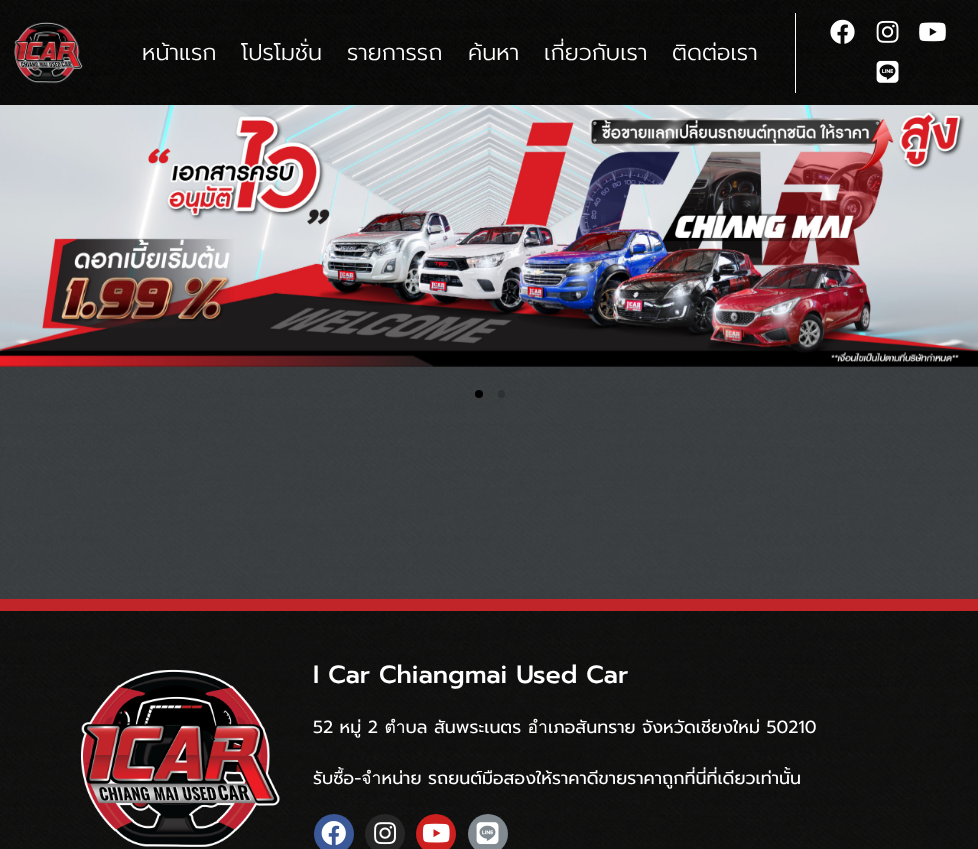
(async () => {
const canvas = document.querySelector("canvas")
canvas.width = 978
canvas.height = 849
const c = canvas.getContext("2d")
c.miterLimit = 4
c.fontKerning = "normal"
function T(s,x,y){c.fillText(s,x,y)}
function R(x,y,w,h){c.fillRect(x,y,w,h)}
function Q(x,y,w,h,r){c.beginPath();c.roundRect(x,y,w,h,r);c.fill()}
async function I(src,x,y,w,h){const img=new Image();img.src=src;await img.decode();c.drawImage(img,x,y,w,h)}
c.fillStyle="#404548"
R(0,0,978,849)
await I("1.png",0,365,978,234)
c.fillStyle="#000"
R(0,0,978,105)
await I("2.png",0,0,978,105)
await I("3.png",14,22,69,62)
c.font="300 22.5px Prompt"
c.fillStyle="#fff"
T("หน้าแรก",142,60)
T("โปรโมชั่น",241,60)
T("รายการรถ",347,60)
T("ค้นหา",468,60)
T("เกี่ยวกับเรา",544,60)
T("ติดต่อเรา",672,60)
R(795,13,1,80)
await I("4.png",830,19,25,25)
await I("5.png",876,20,23,23)
await I("6.png",919,22,27,20)
await I("7.png",876,60,23,23)
await I("8.png",0,105,978,262)
c.fillStyle="#000"
c.beginPath()
c.arc(479,394,4,0,7)
c.fill()
c.fillStyle="#00000033"
Q(498,390,7,8,3.5)
c.fillStyle="#090909"
R(0,611,978,238)
await I("9.png",0,611,978,238)
c.fillStyle="#c12429"
R(0,599,978,12)
await I("10.png",81,669,199,178)
c.font="500 25px Prompt"
c.fillStyle="#fff"
T("I Car Chiangmai Used Car",313,683)
c.font="17.5px Prompt"
T("52 หมู่ 2 ตำบล สันพระเนตร อำเภอสันทราย จังหวัดเชียงใหม่ 50210",313,733)
T("รับซื้อ-จำหน่าย รถยนต์มือสองให้ราคาดีขายราคาถูกที่นี่ที่เดียวเท่านั้น",313,784)
c.fillStyle="#3b5998"
c.beginPath()
c.arc(334,834,20,0,7)
c.fill()
await I("11.png",321,821,25,24)
c.fillStyle="#262626"
c.beginPath()
c.arc(385,834,20,0,7)
c.fill()
await I("12.png",374,822,22,23)
c.fillStyle="#cd201f"
c.beginPath()
c.arc(436,834,20,0,7)
c.fill()
await I("13.png",422,823,28,20)
c.fillStyle="#818a91"
c.beginPath()
c.arc(488,834,20,0,7)
c.fill()
await I("14.png",476,822,23,23)
})()
